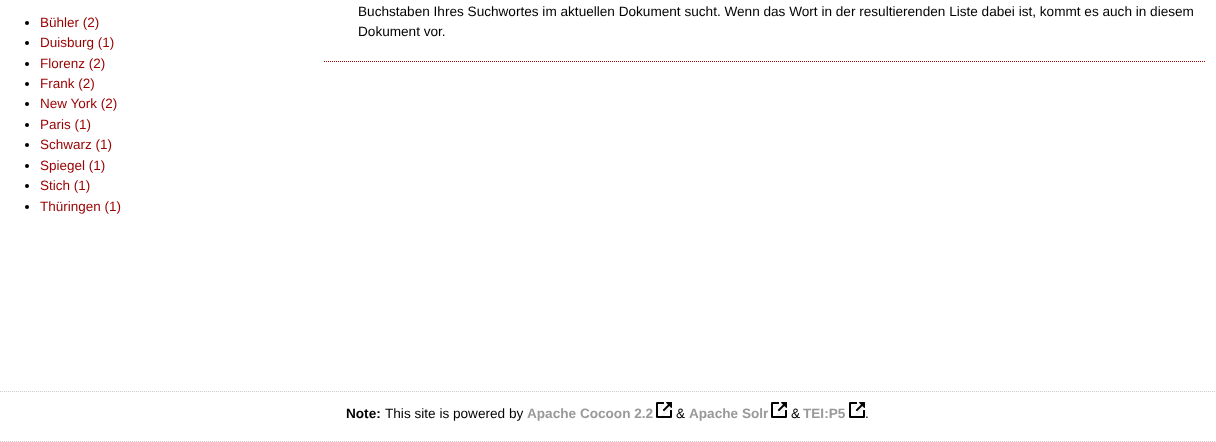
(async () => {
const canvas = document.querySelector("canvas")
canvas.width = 1216
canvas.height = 442
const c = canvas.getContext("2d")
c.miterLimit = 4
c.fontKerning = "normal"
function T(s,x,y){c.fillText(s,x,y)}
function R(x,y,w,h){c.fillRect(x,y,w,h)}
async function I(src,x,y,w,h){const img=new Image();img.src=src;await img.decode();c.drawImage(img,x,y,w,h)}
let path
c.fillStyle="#fff"
R(0,0,1216,442)
c.fillStyle="#000"
c.beginPath()
c.arc(27,23,2,0,7)
c.fill()
c.font="13.5px Liberation Sans"
c.fillStyle="#900"
T("Bühler (2)",40,27)
c.fillStyle="#000"
c.beginPath()
c.arc(27,43,2,0,7)
c.fill()
c.fillStyle="#900"
T("Duisburg (1)",40,47)
c.fillStyle="#000"
c.beginPath()
c.arc(27,64,2,0,7)
c.fill()
c.fillStyle="#900"
T("Florenz (2)",40,68)
c.fillStyle="#000"
c.beginPath()
c.arc(27,84,2,0,7)
c.fill()
c.fillStyle="#900"
T("Frank (2)",40,88)
c.fillStyle="#000"
c.beginPath()
c.arc(27,104,2,0,7)
c.fill()
c.fillStyle="#900"
T("New York (2)",40,108)
c.fillStyle="#000"
c.beginPath()
c.arc(27,125,2,0,7)
c.fill()
c.fillStyle="#900"
T("Paris (1)",40,129)
c.fillStyle="#000"
c.beginPath()
c.arc(27,145,2,0,7)
c.fill()
c.fillStyle="#900"
T("Schwarz (1)",40,149)
c.fillStyle="#000"
c.beginPath()
c.arc(27,166,2,0,7)
c.fill()
c.fillStyle="#900"
T("Spiegel (1)",40,170)
c.fillStyle="#000"
c.beginPath()
c.arc(27,186,2,0,7)
c.fill()
c.fillStyle="#900"
T("Stich (1)",40,190)
c.fillStyle="#000"
c.beginPath()
c.arc(27,207,2,0,7)
c.fill()
c.fillStyle="#900"
T("Thüringen (1)",40,211)
path = new Path2D("M324 61.5h881")
c.strokeStyle="#900"
c.setLineDash([1,1])
c.stroke(path)
c.font="13.6px Liberation Sans"
c.fillStyle="#000"
T("Buchstaben Ihres Suchwortes im aktuellen Dokument sucht. Wenn das Wort in der resultierenden Liste dabei ist, kommt es auch in diesem",358,16)
T("Dokument vor.",358,36)
path = new Path2D("M0 391.5h1215")
c.strokeStyle="#ccc"
c.stroke(path)
path = new Path2D("M0 441.5h1215")
c.stroke(path)
c.font="bold 13.6px Liberation Sans"
T("Note:",346,418)
c.font="13.6px Liberation Sans"
T("This site is powered by",385,418)
c.font="bold 13.6px Liberation Sans"
c.fillStyle="#999"
T("Apache Cocoon 2.2",527,418)
await I("1.png",656,402,16,16)
c.font="13.6px Liberation Sans"
c.fillStyle="#000"
T("&",676,418)
c.font="bold 13.6px Liberation Sans"
c.fillStyle="#999"
T("Apache Solr",689,418)
await I("1.png",771,402,16,16)
c.font="13.6px Liberation Sans"
c.fillStyle="#000"
T("&",791,418)
c.font="bold 13.6px Liberation Sans"
c.fillStyle="#999"
T("TEI:P5",803,418)
await I("1.png",849,402,16,16)
c.font="13.6px Liberation Sans"
c.fillStyle="#000"
T(".",865,418)
})()
